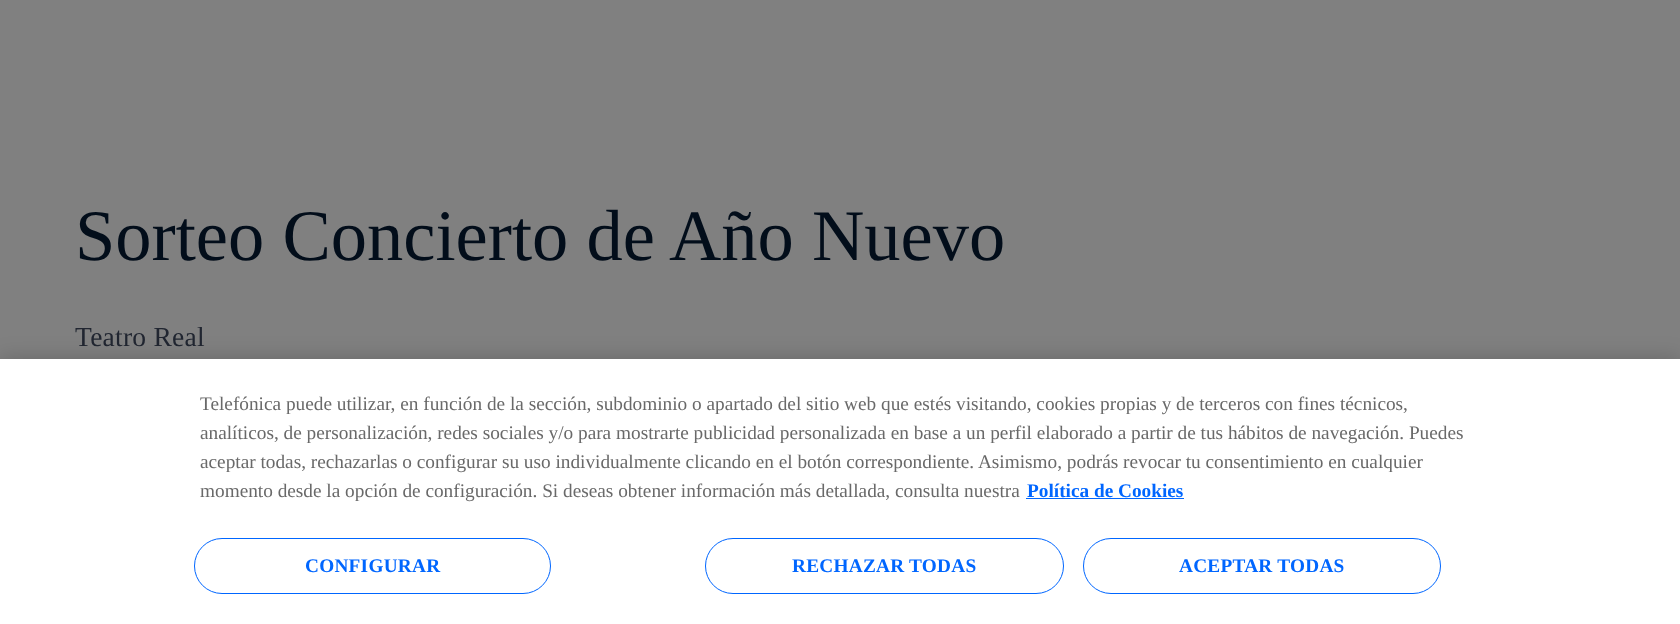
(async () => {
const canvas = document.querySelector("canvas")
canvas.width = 1680
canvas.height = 624
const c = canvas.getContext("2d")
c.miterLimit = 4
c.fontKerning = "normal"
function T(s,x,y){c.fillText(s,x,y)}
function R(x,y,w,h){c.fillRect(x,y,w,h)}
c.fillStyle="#808080"
R(0,0,1680,624)
c.font="72.5px Liberation Serif"
c.fillStyle="#020d1a"
T("Sorteo Concierto de Año Nuevo",75,260)
c.letterSpacing="0.25px"
c.font="27.5px Liberation Serif"
c.fillStyle="#212631"
T("Teatro Real",75,346)
c.fillStyle="#00000033"
c.filter="blur(11px)"
c.beginPath()
c.rect(0,359,1680,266)
c.fill()
c.filter="none"
c.fillStyle="#fff"
R(0,359,1680,265)
c.letterSpacing="0px"
c.font="19.3px Liberation Serif"
c.fillStyle="#696969"
T("Telefónica puede utilizar, en función de la sección, subdominio o apartado del sitio web que estés visitando, cookies propias y de terceros con fines técnicos,",200,410)
T("analíticos, de personalización, redes sociales y/o para mostrarte publicidad personalizada en base a un perfil elaborado a partir de tus hábitos de navegación. Puedes",200,439)
T("aceptar todas, rechazarlas o configurar su uso individualmente clicando en el botón correspondiente. Asimismo, podrás revocar tu consentimiento en cualquier",200,468)
T("momento desde la opción de configuración. Si deseas obtener información más detallada, consulta nuestra",200,497)
c.font="bold 19.3px Liberation Serif"
c.fillStyle="#06f"
T("Política de Cookies",1027,497)
R(1026,498,158,1)
c.beginPath()
c.roundRect(194.5,538.5,356,55,27.5)
c.strokeStyle="#06f"
c.stroke()
c.letterSpacing="0.25px"
T("CONFIGURAR",305,572)
c.beginPath()
c.roundRect(705.5,538.5,358,55,27.5)
c.stroke()
T("RECHAZAR TODAS",792,572)
c.beginPath()
c.roundRect(1083.5,538.5,357,55,27.5)
c.stroke()
T("ACEPTAR TODAS",1179,572)
})()
